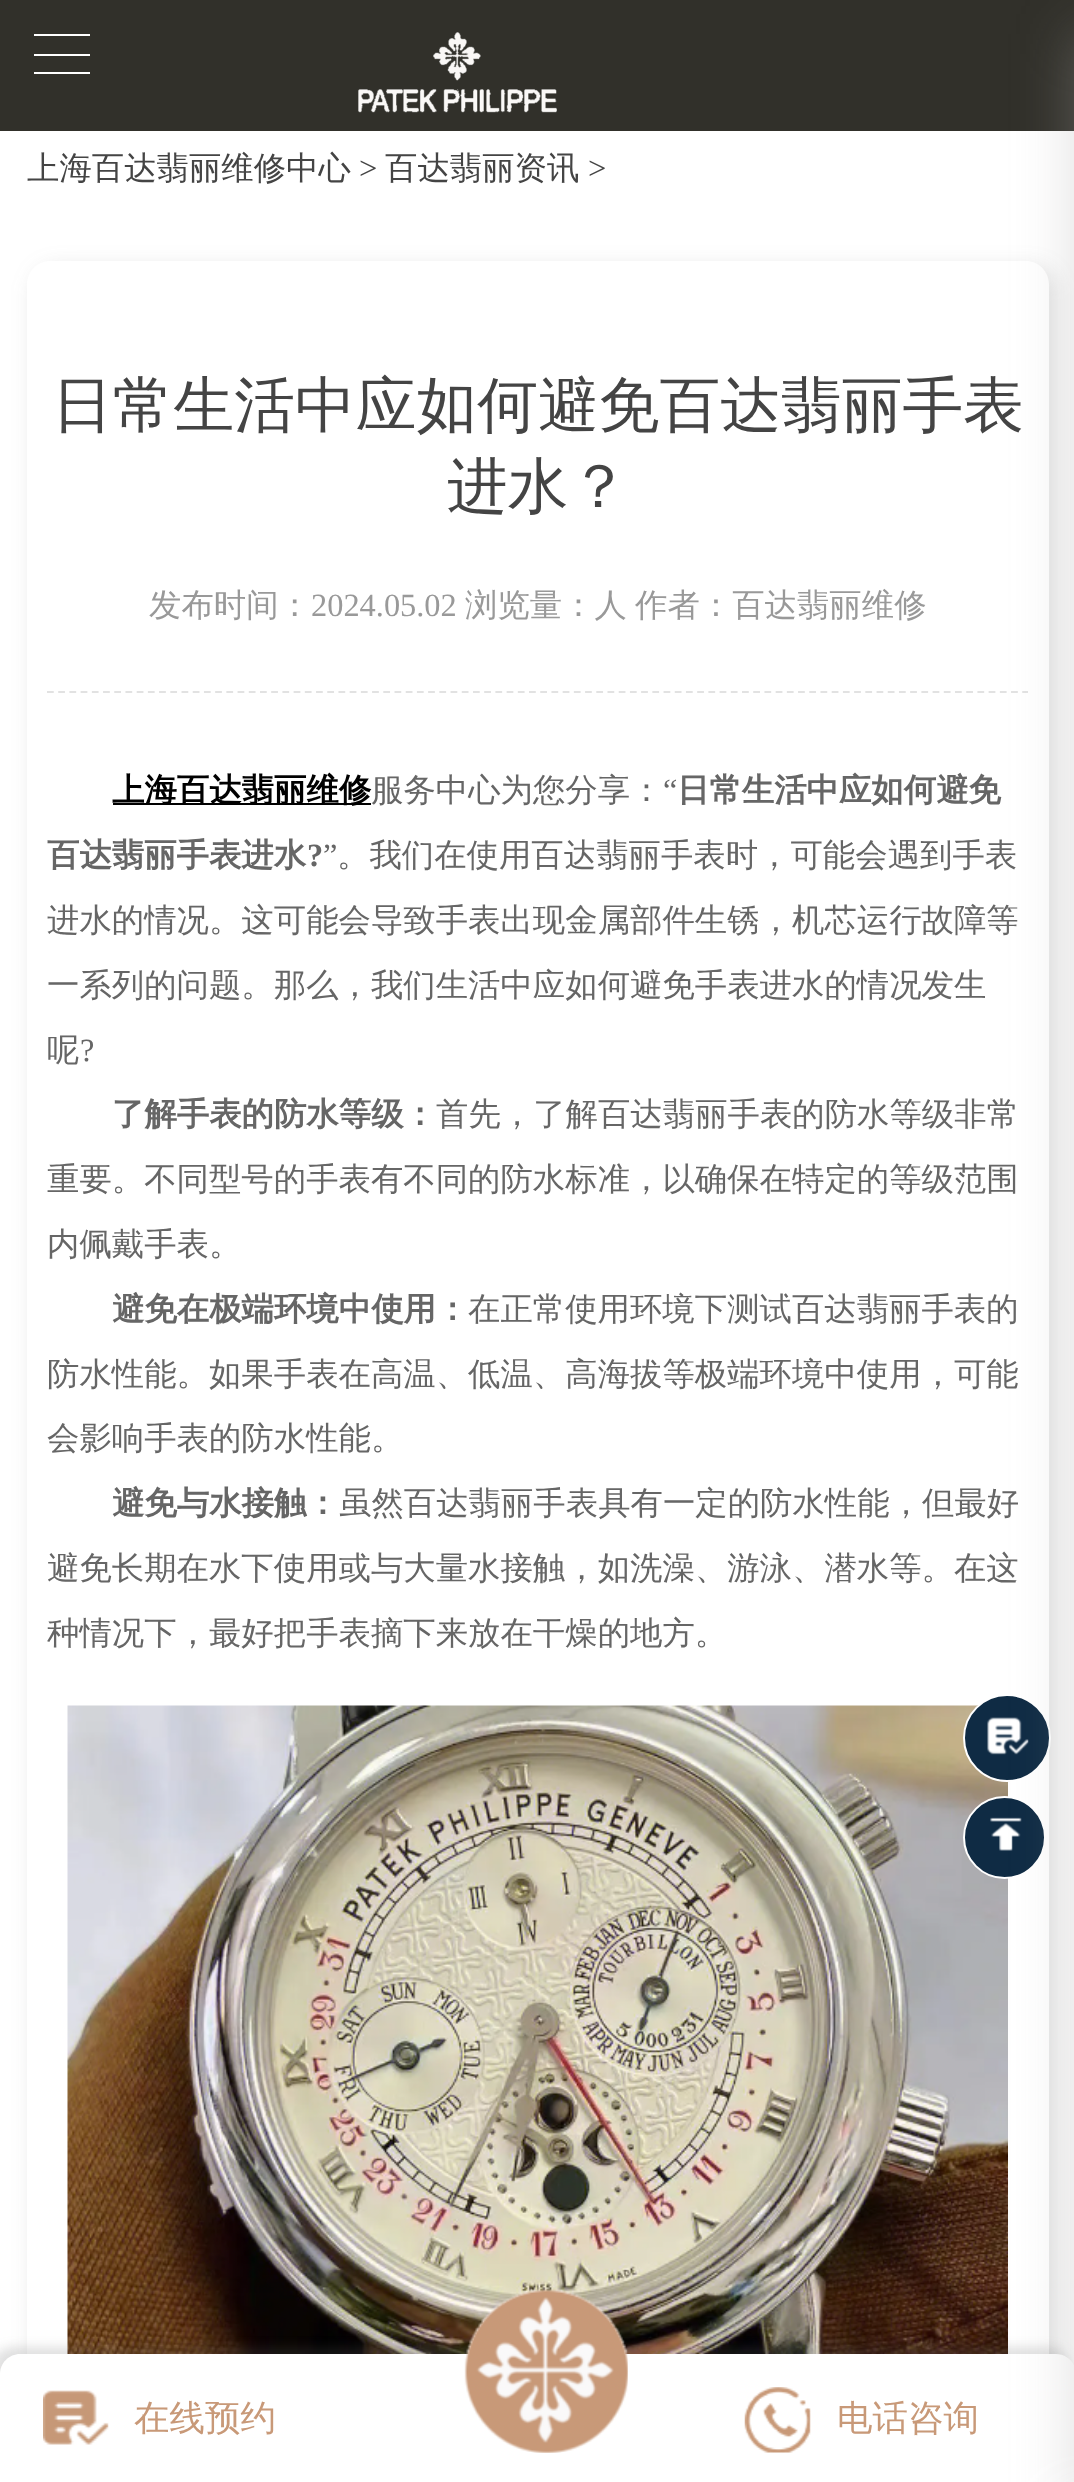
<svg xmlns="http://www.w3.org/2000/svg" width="1074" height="2482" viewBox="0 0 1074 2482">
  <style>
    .t1 { font: 500 32.4px WenQuanYi Zen Hei; fill: #444; }
    .t2 { font: 32.4px Liberation Serif; fill: #444; }
    .t3 { font: 500 60.75px WenQuanYi Zen Hei; fill: #444; }
    .t4 { font: 500 32.4px WenQuanYi Zen Hei; fill: #999; }
    .t5 { font: 32.4px Liberation Serif; fill: #999; }
    .t6 { font: bold 32.4px WenQuanYi Zen Hei; fill: #000; }
    .t7 { font: 500 32.4px WenQuanYi Zen Hei; fill: #666; }
    .t8 { font: 32.4px Liberation Serif; fill: #666; }
    .t9 { font: bold 32.4px WenQuanYi Zen Hei; fill: #666; }
    .t10 { font: bold 32.4px Liberation Serif; fill: #666; }
    .t11 { font: 500 35.5px WenQuanYi Zen Hei; fill: #c89978; }
  </style>
  <defs>
    <clipPath id="clip1"><path d="M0 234H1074V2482H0ZM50 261H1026C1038.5 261 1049 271.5 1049 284V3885C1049 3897.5 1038.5 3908 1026 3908H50C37.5 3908 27 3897.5 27 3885V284C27 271.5 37.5 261 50 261Z" clip-rule="evenodd"/></clipPath>
  </defs>
  <rect width="100%" height="100%" fill="#fff"/>
  <rect x="0" y="0" width="1074" height="131" fill="#31302a"/>
  <rect x="34" y="54" width="56" height="2" fill="#fff"/>
  <rect x="34" y="34" width="56" height="2" fill="#fff"/>
  <rect x="34" y="72" width="56" height="2" fill="#fff"/>
  <image x="358" y="32" width="199" height="81" href="images/1.png"/>
  <g clip-path="url(#clip1)">
    <rect x="34" y="268" width="1021" height="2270" rx="23" fill="#66666633" filter="blur(11px)"/>
  </g>
  <path d="M47 692H1028" fill="none" stroke="#e2e2e2" stroke-width="2.2" stroke-dasharray="6.75 4.46"/>
  <image x="67" y="1705" width="941" height="649" href="images/2.png"/>
  <circle cx="1007" cy="1738" r="43" fill="#0f2b44" stroke="#fff" stroke-width="2"/>
  <image x="987" y="1717" width="42" height="38" href="images/3.png"/>
  <circle cx="1004.5" cy="1837.5" r="40.5" fill="#0f2b44" stroke="#fff" stroke-width="2"/>
  <image x="990" y="1817" width="32" height="34" href="images/4.png"/>
  <rect x="-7" y="2347" width="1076" height="130" rx="20" fill="#66666633" filter="blur(5.5px)"/>
  <path d="M20 2354H1056C1067 2354 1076 2363 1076 2374V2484H0V2374C0 2363 9 2354 20 2354Z" fill="#fff"/>
  <rect x="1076" y="34" width="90" height="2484" fill="#a7a5a561" filter="blur(30.5px)"/>
  <text x="27" y="179" class="t1">上海百达翡丽维修中心</text>
  <text x="359" y="179" class="t2">&gt;</text>
  <text x="385" y="179" class="t1">百达翡丽资讯</text>
  <text x="588" y="179" class="t2">&gt;</text>
  <text x="52" y="426" class="t3">日常生活中应如何避免百达翡丽手表</text>
  <text x="447" y="507" class="t3">进水？</text>
  <text x="149" y="616" class="t4">发布时间：</text>
  <text x="311" y="616" class="t5">2024.05.02</text>
  <text x="465" y="616" class="t4">浏览量：人</text>
  <text x="635" y="616" class="t4">作者：百达翡丽维修</text>
  <rect x="113" y="803" width="258" height="2" fill="#000"/>
  <text x="112" y="801" class="t6">上海百达翡丽维修</text>
  <text x="371" y="801" class="t7">服务中心为您分享：</text>
  <text x="663" y="801" class="t8">“</text>
  <text x="677" y="801" class="t9">日常生活中应如何避免</text>
  <text x="47" y="866" class="t9">百达翡丽手表进水</text>
  <text x="307" y="866" class="t10">?</text>
  <text x="323" y="866" class="t8">”</text>
  <text x="337" y="866" class="t7">。我们在使用百达翡丽手表时，可能会遇到手表</text>
  <text x="47" y="931" class="t7">进水的情况。这可能会导致手表出现金属部件生锈，机芯运行故障等</text>
  <text x="47" y="996" class="t7">一系列的问题。那么，我们生活中应如何避免手表进水的情况发生</text>
  <text x="47" y="1061" class="t7">呢</text>
  <text x="80" y="1061" class="t8">?</text>
  <text x="112" y="1125" class="t9">了解手表的防水等级：</text>
  <text x="436" y="1125" class="t7">首先，了解百达翡丽手表的防水等级非常</text>
  <text x="47" y="1190" class="t7">重要。不同型号的手表有不同的防水标准，以确保在特定的等级范围</text>
  <text x="47" y="1255" class="t7">内佩戴手表。</text>
  <text x="112" y="1320" class="t9">避免在极端环境中使用：</text>
  <text x="468" y="1320" class="t7">在正常使用环境下测试百达翡丽手表的</text>
  <text x="47" y="1385" class="t7">防水性能。如果手表在高温、低温、高海拔等极端环境中使用，可能</text>
  <text x="47" y="1449" class="t7">会影响手表的防水性能。</text>
  <text x="112" y="1514" class="t9">避免与水接触：</text>
  <text x="339" y="1514" class="t7">虽然百达翡丽手表具有一定的防水性能，但最好</text>
  <text x="47" y="1579" class="t7">避免长期在水下使用或与大量水接触，如洗澡、游泳、潜水等。在这</text>
  <text x="47" y="1644" class="t7">种情况下，最好把手表摘下来放在干燥的地方。</text>
  <image x="43" y="2390" width="66" height="55" href="images/5.png"/>
  <text x="134" y="2430" class="t11">在线预约</text>
  <image x="464" y="2289" width="164" height="164" href="images/6.png"/>
  <image x="744" y="2387" width="67" height="66" href="images/7.png"/>
  <text x="837" y="2430" class="t11">电话咨询</text>
</svg>
